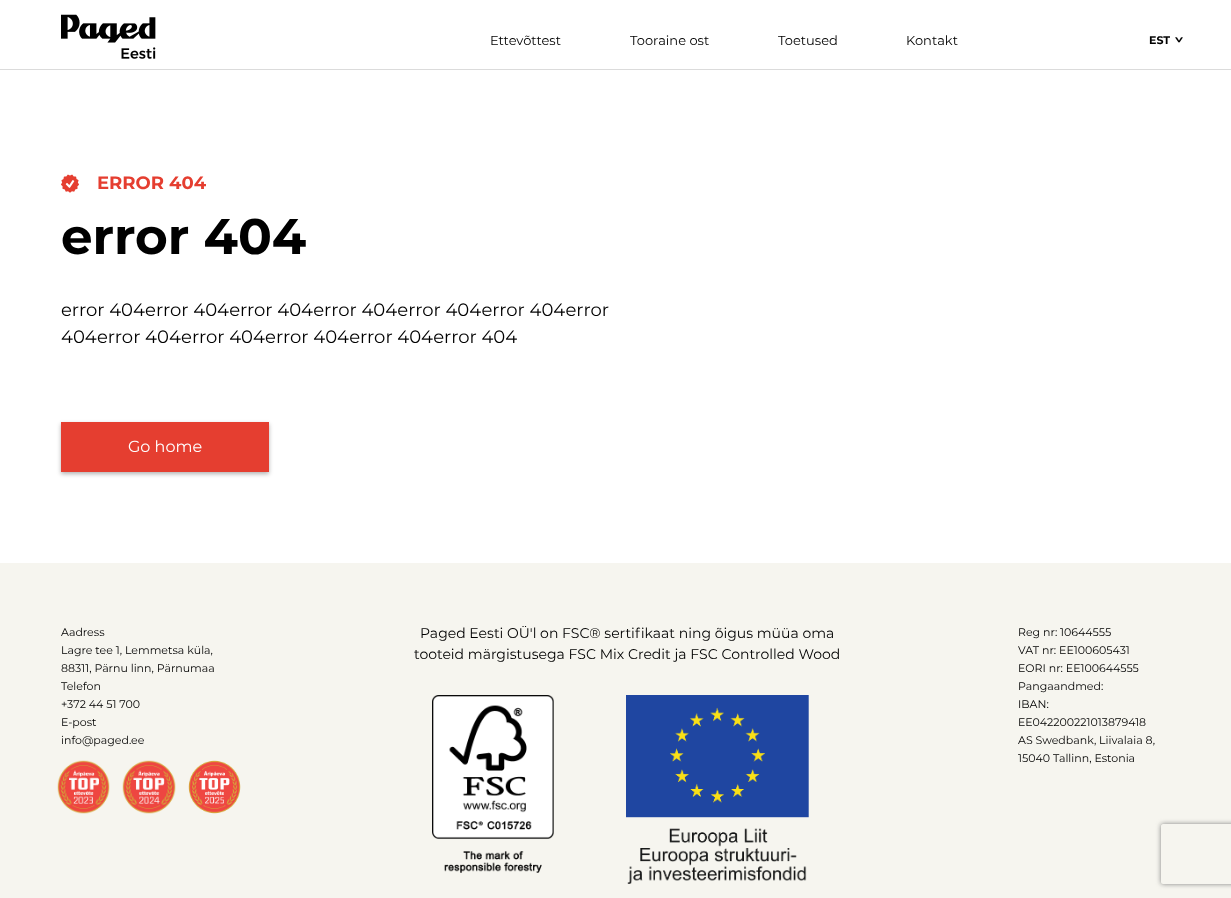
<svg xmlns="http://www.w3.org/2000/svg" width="1231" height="898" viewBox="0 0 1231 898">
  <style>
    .t1 { font: 13px Montserrat; fill: #000; }
    .t2 { font: bold 11px Montserrat; fill: #000; }
    .t3 { font: bold 18px Montserrat; fill: #e53e30; }
    .t4 { font: bold 50px Montserrat; fill: #000; }
    .t5 { font: 18px Montserrat; fill: #000; }
    .t6 { font: 16px Montserrat; fill: #fff; }
    .t7 { font: 11px Montserrat; fill: #000; }
    .t8 { font: 14px Montserrat; fill: #000; }
  </style>
  <defs>
    <clipPath id="clip1"><rect x="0" y="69" width="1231" height="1"/></clipPath>
    <clipPath id="clip2"><path d="M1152 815H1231V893H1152ZM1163 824H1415C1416 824 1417 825 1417 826V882C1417 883 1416 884 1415 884H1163C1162 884 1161 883 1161 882V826C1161 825 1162 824 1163 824Z" clip-rule="evenodd"/></clipPath>
  </defs>
  <rect width="100%" height="100%" fill="#fff"/>
  <g clip-path="url(#clip1)">
    <rect x="0" y="1" width="1231" height="69" fill="#00000024" filter="blur(0.5px)"/>
  </g>
  <image x="61" y="14" width="95" height="45" href="images/1.png"/>
  <text x="490" y="45" class="t1">Ettevõttest</text>
  <text x="630" y="45" class="t1">Tooraine ost</text>
  <text x="778" y="45" class="t1">Toetused</text>
  <text x="906" y="45" class="t1">Kontakt</text>
  <text x="1149" y="44" class="t2">EST</text>
  <image x="1175" y="37" width="8" height="6" href="images/2.png"/>
  <image x="61" y="174" width="18" height="19" href="images/3.png"/>
  <text x="97" y="189" class="t3">ERROR 404</text>
  <text x="61" y="254" class="t4">error 404</text>
  <text x="61" y="316" class="t5">error 404error 404error 404error 404error 404error 404error</text>
  <text x="61" y="343" class="t5">404error 404error 404error 404error 404error 404</text>
  <rect x="61" y="424" width="208" height="50" fill="#0000004d" filter="blur(2px)"/>
  <rect x="61" y="422" width="208" height="50" fill="#e53e30"/>
  <text x="128" y="452" class="t6">Go home</text>
  <rect x="0" y="563" width="1231" height="335" fill="#f6f5ef"/>
  <text x="61" y="636" class="t7">Aadress</text>
  <text x="61" y="654" class="t7">Lagre tee 1, Lemmetsa küla,</text>
  <text x="61" y="672" class="t7">88311, Pärnu linn, Pärnumaa</text>
  <text x="61" y="690" class="t7">Telefon</text>
  <text x="61" y="708" class="t7">+372 44 51 700</text>
  <text x="61" y="726" class="t7">E-post</text>
  <text x="61" y="744" class="t7">info@paged.ee</text>
  <image x="57" y="760" width="53" height="54" href="images/4.png"/>
  <image x="122" y="760" width="54" height="54" href="images/5.png"/>
  <image x="188" y="760" width="53" height="54" href="images/6.png"/>
  <text x="420" y="638" class="t8">Paged Eesti OÜ'l on FSC® sertifikaat ning õigus müüa oma</text>
  <text x="414" y="659" class="t8">tooteid märgistusega FSC Mix Credit ja FSC Controlled Wood</text>
  <image x="432" y="695" width="122" height="178" href="images/7.png"/>
  <image x="626" y="695" width="183" height="189" href="images/8.png"/>
  <text x="1018" y="636" class="t7">Reg nr: 10644555</text>
  <text x="1018" y="654" class="t7">VAT nr: EE100605431</text>
  <text x="1018" y="672" class="t7">EORI nr: EE100644555</text>
  <text x="1018" y="690" class="t7">Pangaandmed:</text>
  <text x="1018" y="708" class="t7">IBAN:</text>
  <text x="1018" y="726" class="t7">EE042200221013879418</text>
  <text x="1018" y="744" class="t7">AS Swedbank, Liivalaia 8,</text>
  <text x="1018" y="762" class="t7">15040 Tallinn, Estonia</text>
  <g clip-path="url(#clip2)">
    <rect x="1161" y="824" width="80" height="60" rx="2" fill="#808080" filter="blur(2.5px)"/>
  </g>
</svg>
